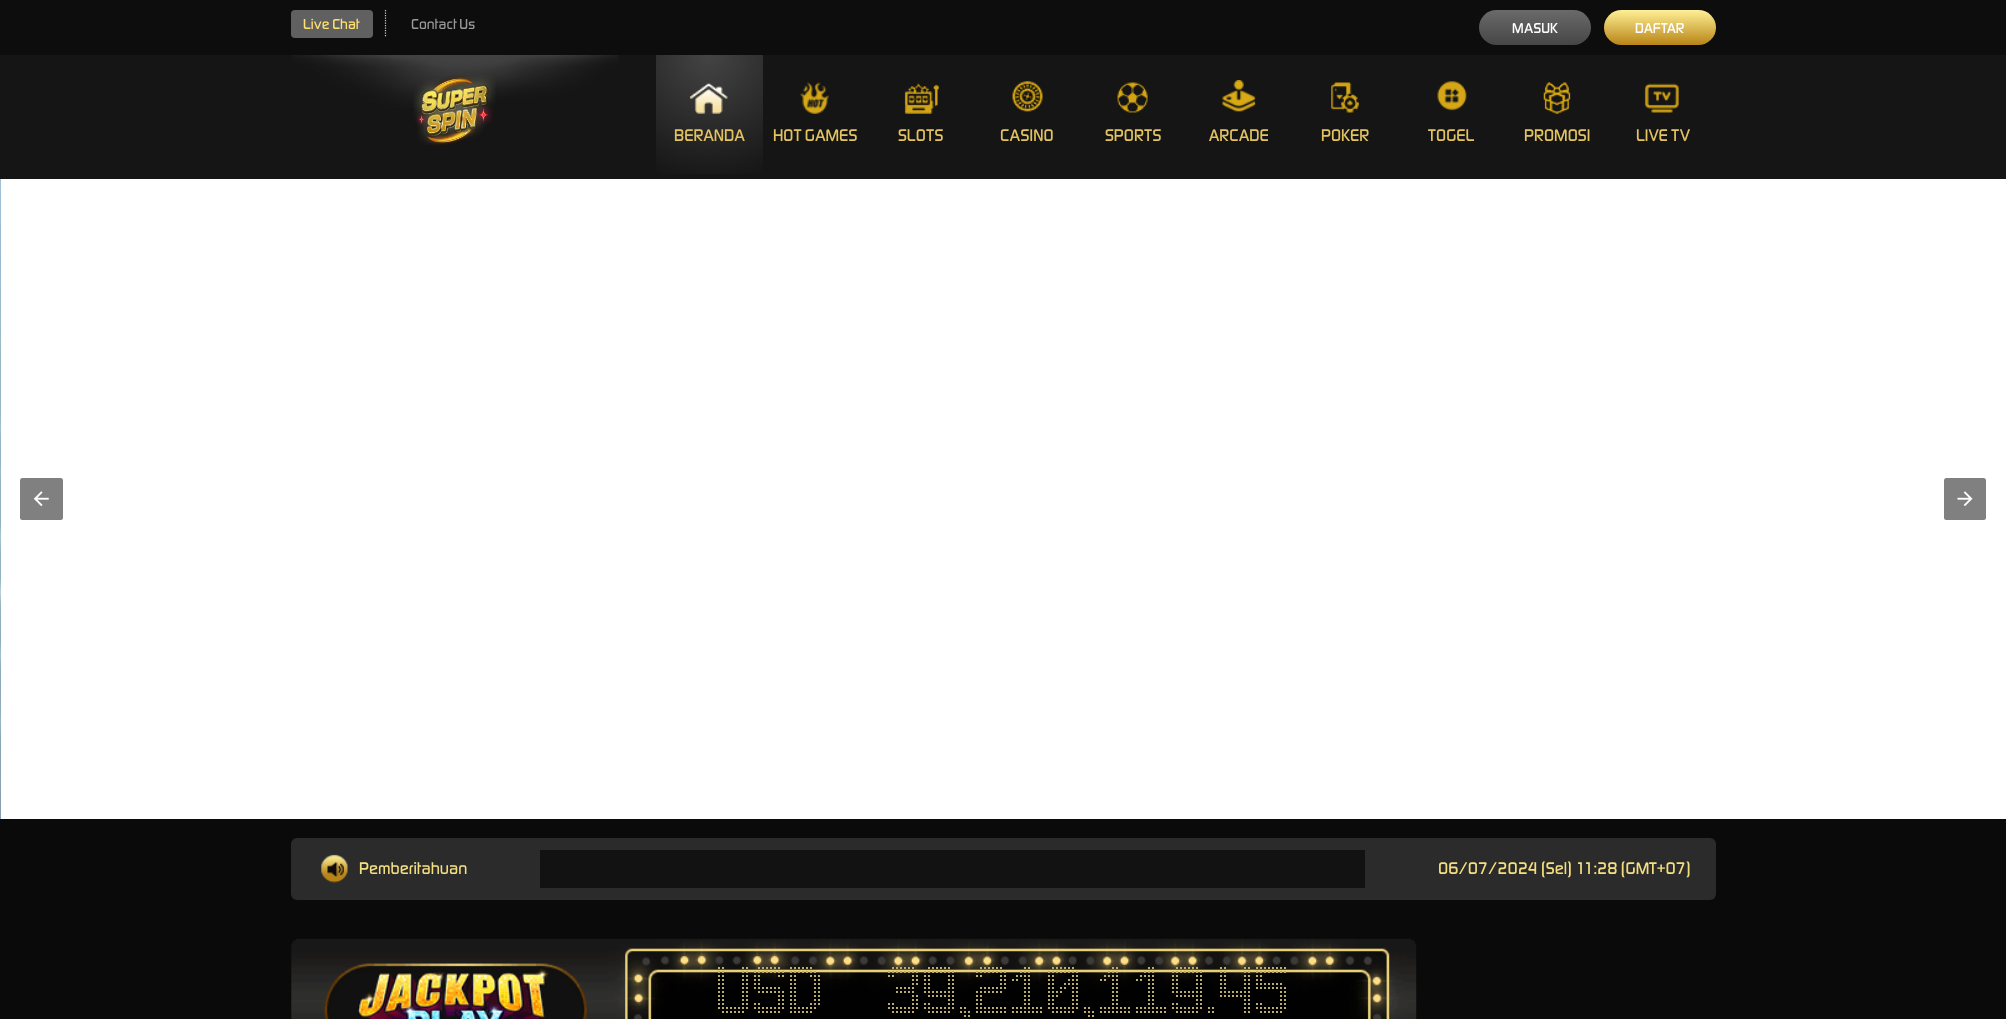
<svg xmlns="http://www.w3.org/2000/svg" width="2006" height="1019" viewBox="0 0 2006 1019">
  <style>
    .t1 { font: 500 15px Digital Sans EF; fill: #fee16e; }
    .t2 { font: 500 15px Digital Sans EF; fill: #999; }
    .t3 { font: 500 15px Digital Sans EF; fill: #fff; }
    .t4 { font: 500 17.5px Digital Sans EF; fill: #e2c360; }
    .t5 { font: 500 17.5px Digital Sans EF; fill: #f4df80; }
    .t6 { font: 40px 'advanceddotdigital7'; fill: #baad6b; }
  </style>
  <defs>
    <linearGradient id="g1" gradientUnits="userSpaceOnUse" x1="1535" y1="10" x2="1535" y2="45"><stop offset="0" stop-color="#6a6a6a"/><stop offset="1" stop-color="#464646"/></linearGradient>
    <linearGradient id="g2" gradientUnits="userSpaceOnUse" x1="1660" y1="10" x2="1660" y2="45"><stop offset="0" stop-color="#fff095"/><stop offset="1" stop-color="#b88416"/></linearGradient>
    <radialGradient id="g3" gradientUnits="userSpaceOnUse" cx="709" cy="55" r="130"><stop offset="0" stop-color="#444"/><stop offset="1" stop-color="#151515"/></radialGradient>
  </defs>
  <rect width="100%" height="100%" fill="#fff"/>
  <rect x="0" y="0" width="2006" height="55" fill="#0d0d0d"/>
  <rect x="291" y="10" width="82" height="28" rx="4" fill="#606060"/>
  <text x="303" y="29" class="t1">Live Chat</text>
  <path d="M385.5 10V37.5" fill="none" stroke="#ccc" stroke-width="1.2" stroke-dasharray="1.25 1.25"/>
  <text x="411" y="29" class="t2">Contact Us</text>
  <rect x="1479" y="10" width="112" height="35" rx="17.5" fill="url(#g1)"/>
  <text x="1512" y="33" class="t3">MASUK</text>
  <rect x="1604" y="10" width="112" height="35" rx="17.5" fill="url(#g2)"/>
  <text x="1635" y="33" class="t3">DAFTAR</text>
  <rect x="0" y="55" width="2006" height="124" fill="#151515"/>
  <image x="291" y="55" width="328" height="53" href="images/1.png"/>
  <image x="413" y="75" width="83" height="70" href="images/2.png"/>
  <rect x="656" y="55" width="107" height="119" fill="url(#g3)"/>
  <image x="690" y="83" width="38" height="31" href="images/3.png"/>
  <text x="674" y="141" class="t4">BERANDA</text>
  <image x="800" y="82" width="29" height="32" href="images/4.png"/>
  <text x="773" y="141" class="t4">HOT GAMES</text>
  <image x="904" y="83" width="35" height="31" href="images/5.png"/>
  <text x="898" y="141" class="t4">SLOTS</text>
  <image x="1012" y="81" width="31" height="31" href="images/6.png"/>
  <text x="1000" y="141" class="t4">CASINO</text>
  <image x="1117" y="82" width="31" height="31" href="images/7.png"/>
  <text x="1105" y="141" class="t4">SPORTS</text>
  <image x="1222" y="80" width="34" height="32" href="images/8.png"/>
  <text x="1209" y="141" class="t4">ARCADE</text>
  <image x="1331" y="82" width="28" height="31" href="images/9.png"/>
  <text x="1321" y="141" class="t4">POKER</text>
  <image x="1437" y="81" width="30" height="30" href="images/10.png"/>
  <text x="1428" y="141" class="t4">TOGEL</text>
  <image x="1543" y="82" width="28" height="32" href="images/11.png"/>
  <text x="1524" y="141" class="t4">PROMOSI</text>
  <image x="1644" y="83" width="35" height="30" href="images/12.png"/>
  <text x="1636" y="141" class="t4">LIVE TV</text>
  <image x="0" y="179" width="1" height="640" href="images/13.png"/>
  <rect x="20" y="478" width="43" height="42" rx="2.5" fill="#808080"/>
  <image x="33" y="491" width="16" height="16" href="images/14.png"/>
  <rect x="1944" y="478" width="42" height="42" rx="2.5" fill="#808080"/>
  <image x="1957" y="491" width="16" height="15" href="images/15.png"/>
  <rect x="0" y="819" width="2006" height="200" fill="#0a0a0a"/>
  <rect x="291" y="838" width="1425" height="62" rx="6" fill="#2b2b2b"/>
  <image x="321" y="854" width="27" height="29" href="images/16.png"/>
  <text x="359" y="874" class="t5">Pemberitahuan</text>
  <rect x="540" y="850" width="825" height="38" fill="#131212"/>
  <text x="1438" y="874" class="t5">06/07/2024 (Sel) 11:28 (GMT+07)</text>
  <image x="291" y="938" width="1126" height="81" href="images/17.png"/>
  <text x="718" y="1013" class="t6">USD</text>
  <text x="888" y="1013" class="t6">39,210,119.45</text>
</svg>
